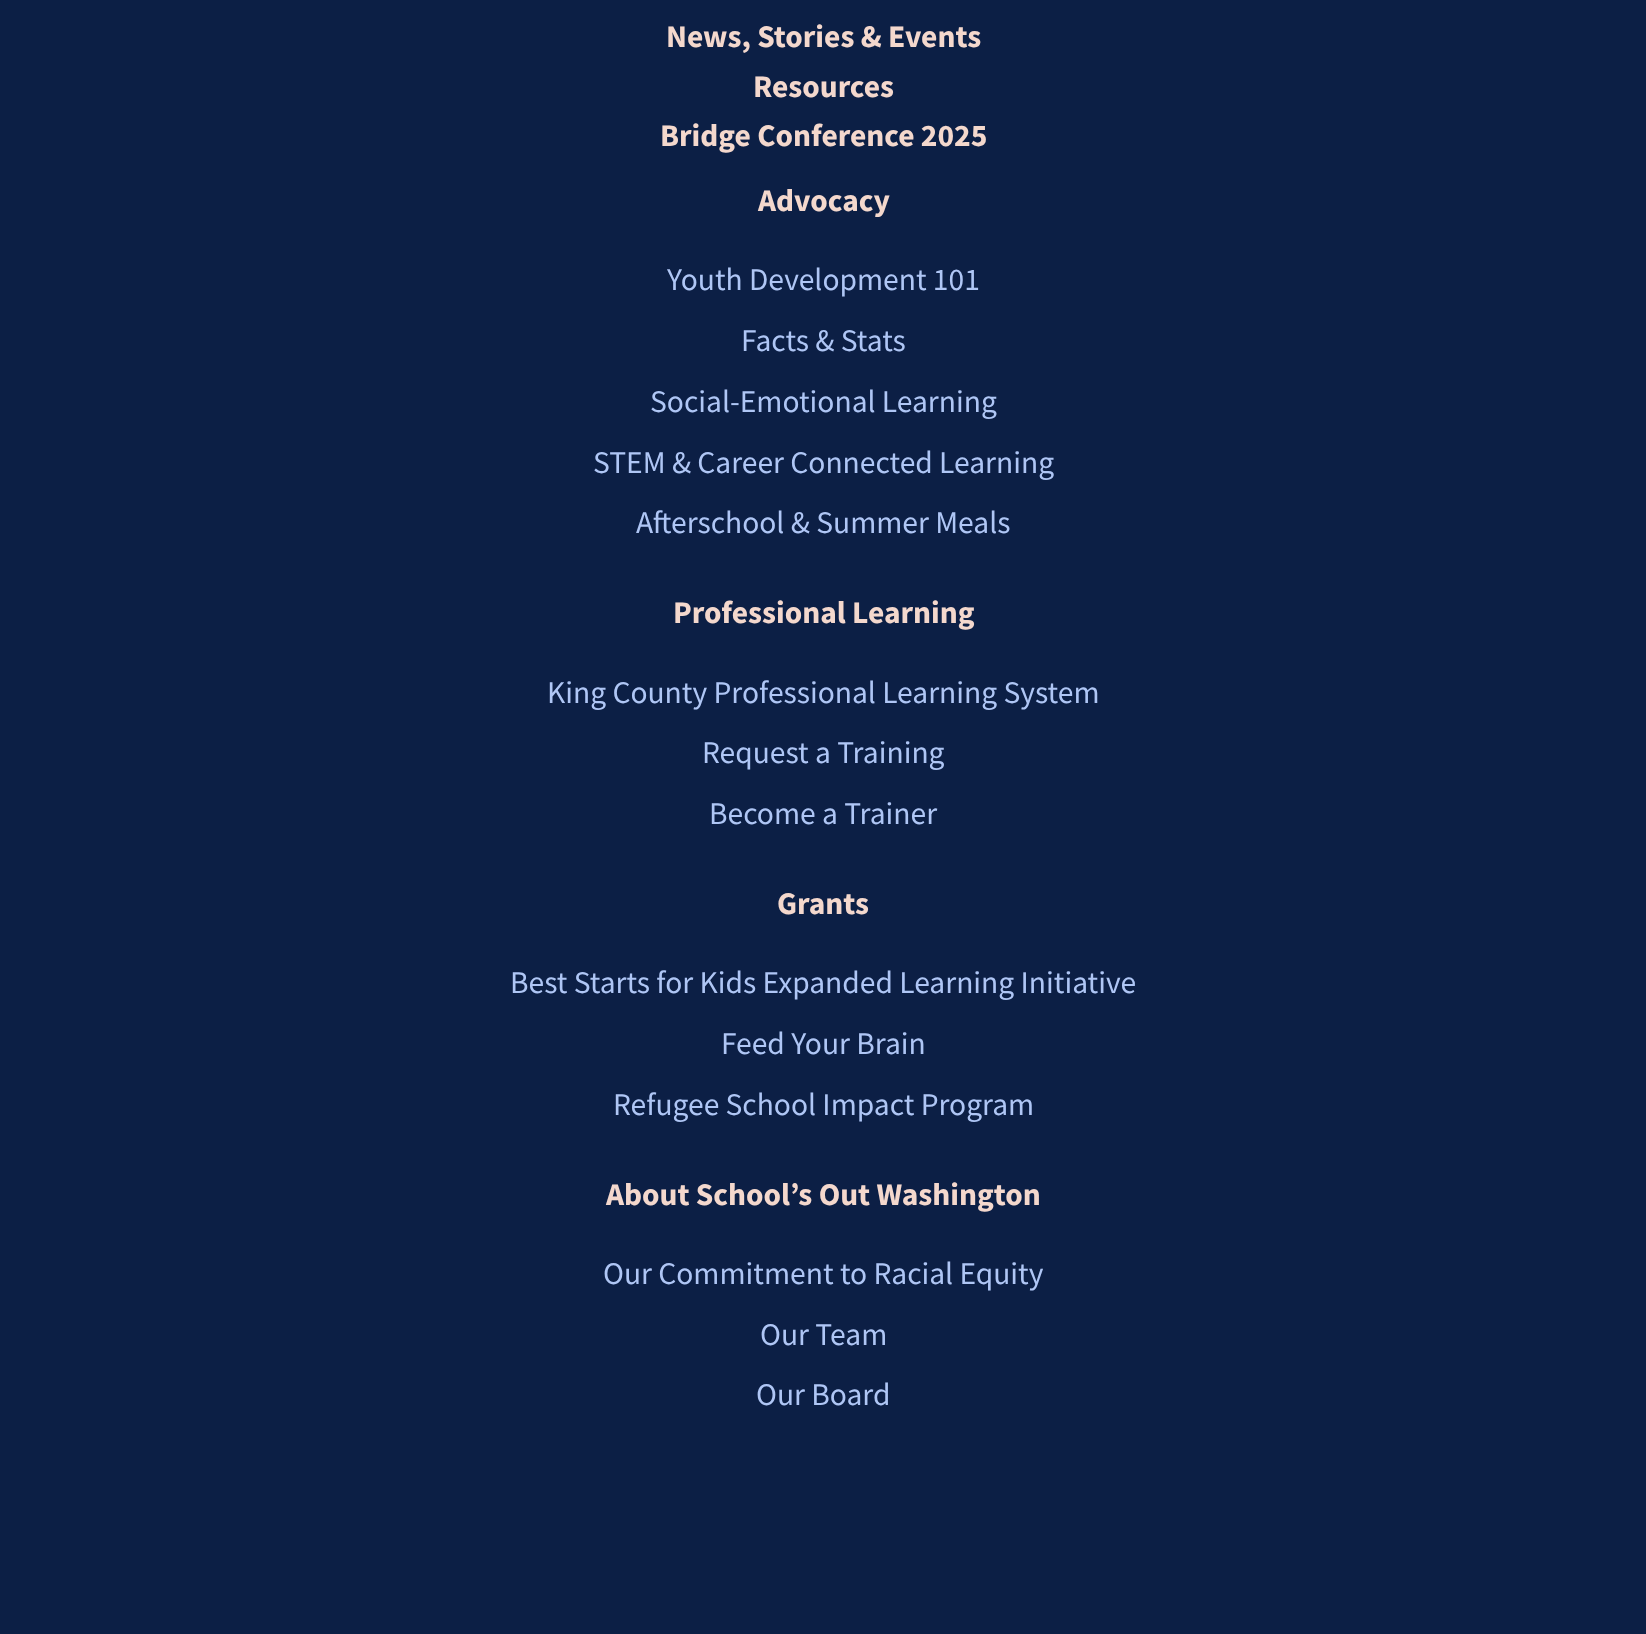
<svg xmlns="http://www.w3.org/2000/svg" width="1646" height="1634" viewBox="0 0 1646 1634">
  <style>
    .t1 { font: bold 31.5px Source Sans Pro; fill: #f4d8cd; }
    .t2 { font: 31.5px Source Sans Pro; fill: #afc6f5; }
  </style>
  <rect width="100%" height="100%" fill="#0c1f45"/>
  <text x="666" y="47" class="t1">News, Stories &amp; Events</text>
  <text x="753" y="97" class="t1">Resources</text>
  <text x="660" y="146" class="t1">Bridge Conference 2025</text>
  <text x="758" y="211" class="t1">Advocacy</text>
  <text x="667" y="290" class="t2">Youth Development 101</text>
  <text x="741" y="351" class="t2">Facts &amp; Stats</text>
  <text x="650" y="412" class="t2">Social-Emotional Learning</text>
  <text x="593" y="473" class="t2">STEM &amp; Career Connected Learning</text>
  <text x="636" y="533" class="t2">Afterschool &amp; Summer Meals</text>
  <text x="673" y="623" class="t1">Professional Learning</text>
  <text x="547" y="703" class="t2">King County Professional Learning System</text>
  <text x="702" y="763" class="t2">Request a Training</text>
  <text x="709" y="824" class="t2">Become a Trainer</text>
  <text x="777" y="914" class="t1">Grants</text>
  <text x="510" y="993" class="t2">Best Starts for Kids Expanded Learning Initiative</text>
  <text x="721" y="1054" class="t2">Feed Your Brain</text>
  <text x="613" y="1115" class="t2">Refugee School Impact Program</text>
  <text x="606" y="1205" class="t1">About School’s Out Washington</text>
  <text x="603" y="1284" class="t2">Our Commitment to Racial Equity</text>
  <text x="760" y="1345" class="t2">Our Team</text>
  <text x="756" y="1405" class="t2">Our Board</text>
</svg>
